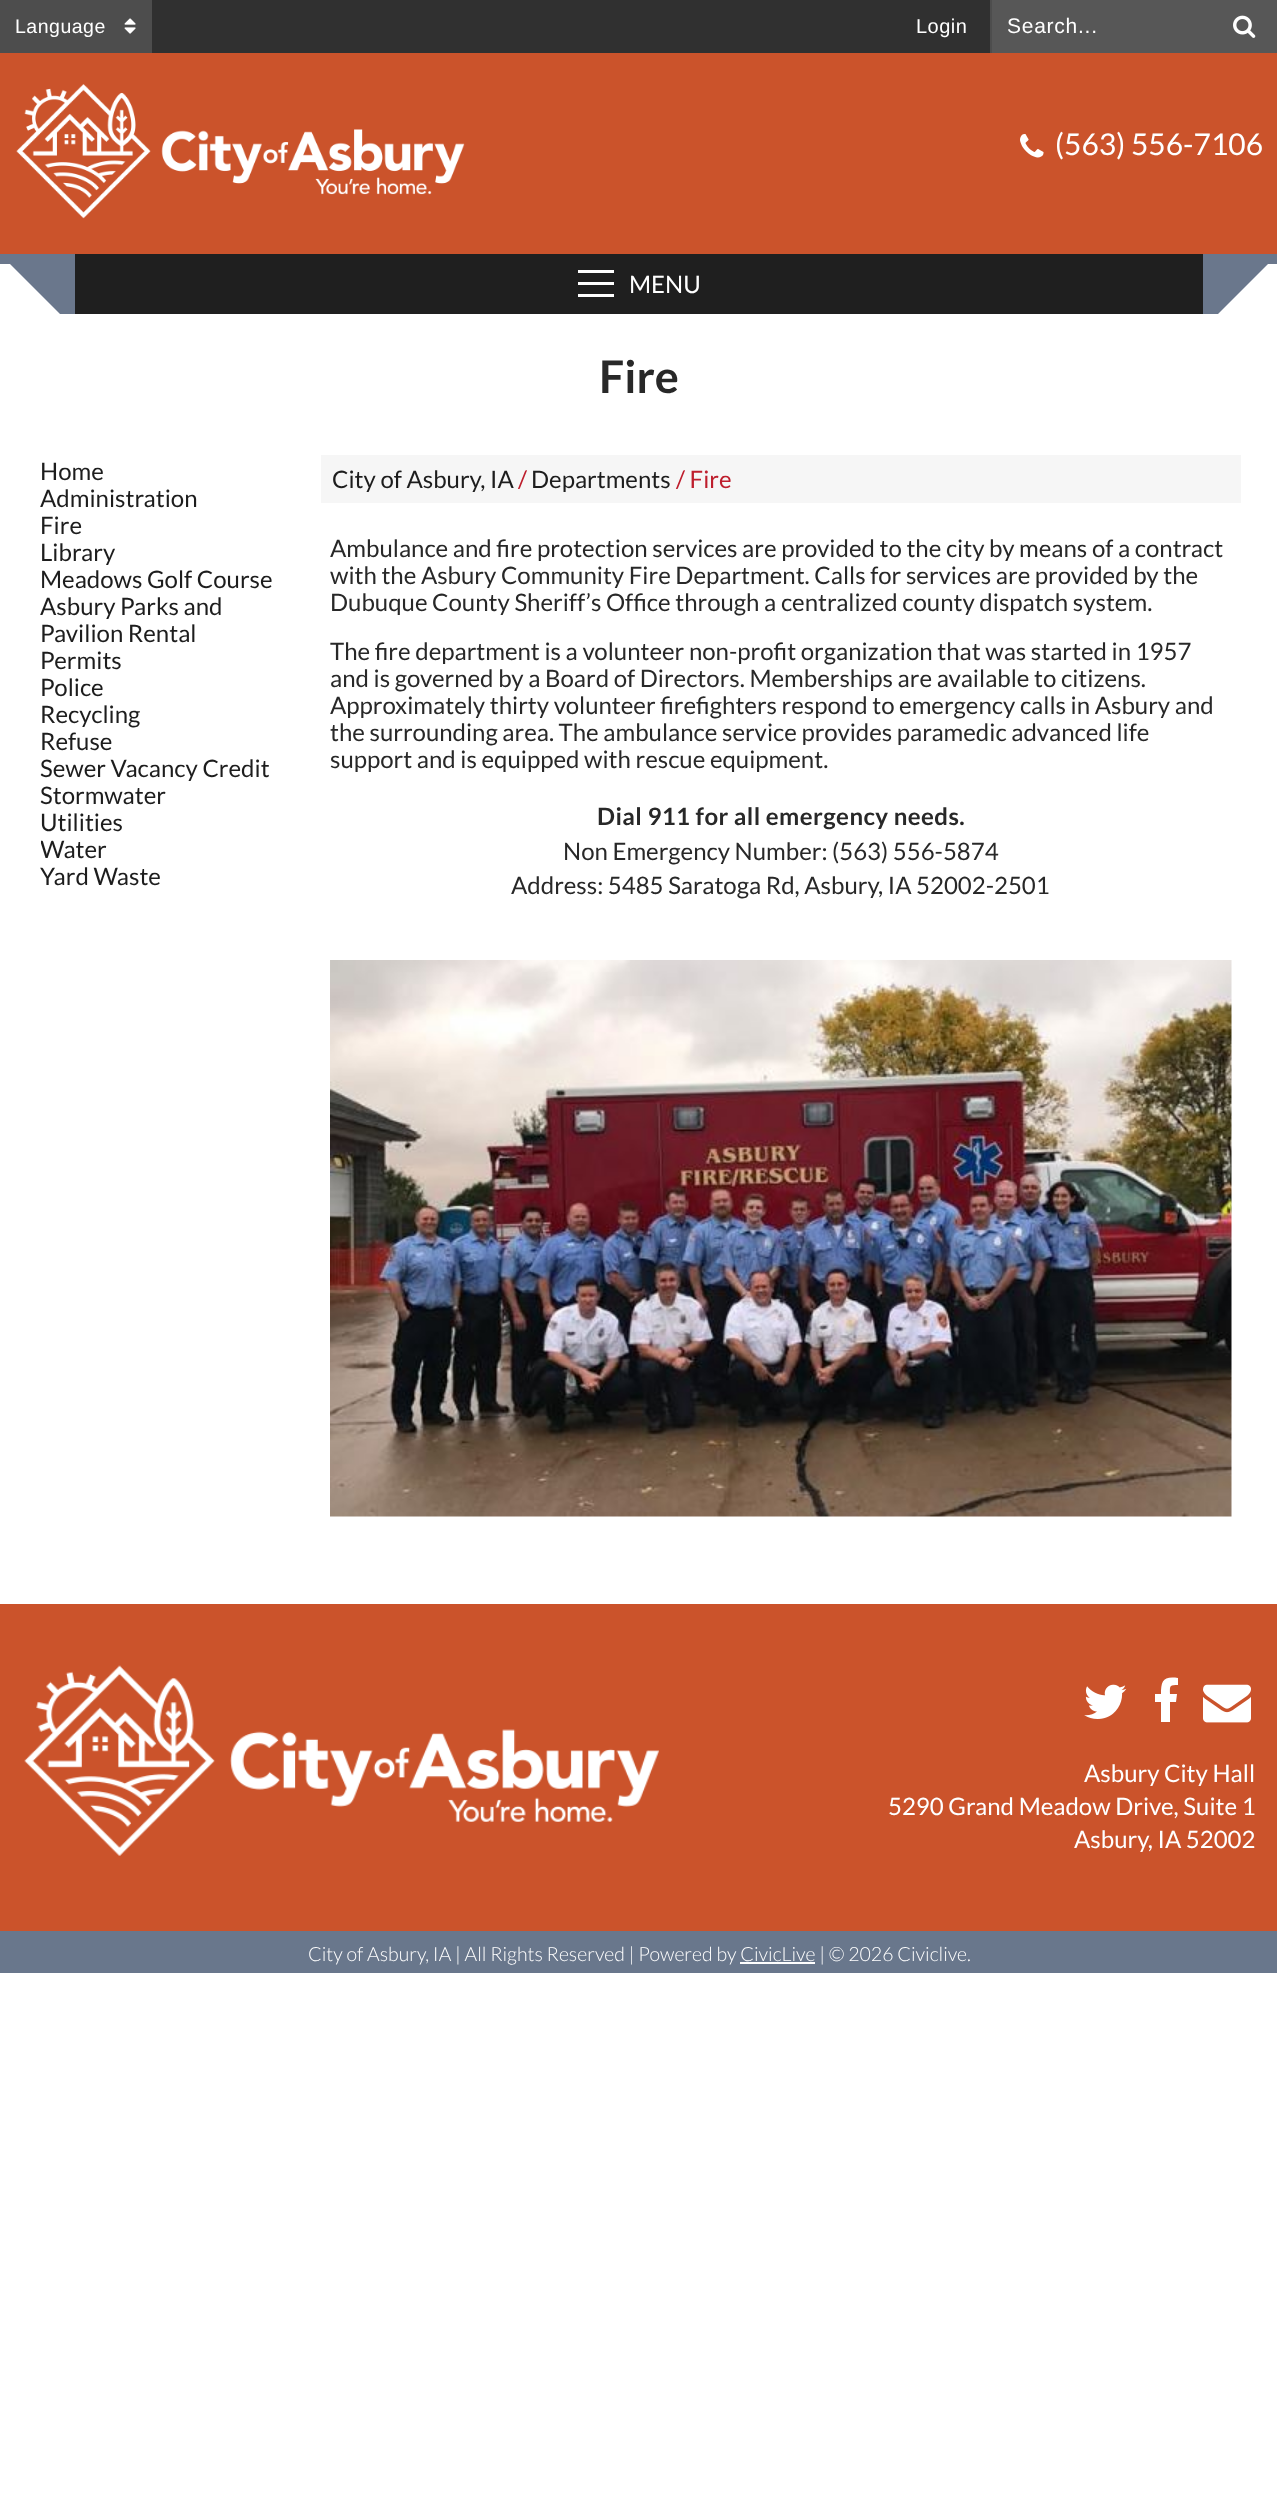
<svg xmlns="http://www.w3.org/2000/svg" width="1277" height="2496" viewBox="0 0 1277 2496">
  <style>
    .t1 { font: 19.5px Liberation Sans; letter-spacing: 0.5px; fill: #fff; }
    .t2 { font: 20px Liberation Sans; letter-spacing: 0.5px; fill: #fff; }
    .t3 { font: 21px Liberation Sans; letter-spacing: 0.75px; fill: #fff; }
    .t4 { font: 30px Lato; fill: #fff; }
    .t5 { font: 24px Lato; fill: #fff; }
    .t6 { font: bold 45px Lato; fill: #282828; }
    .t7 { font: 24px Lato; fill: #1d1d1d; }
    .t8 { font: 24px Lato; fill: #be1e2d; }
    .t9 { font: 24px Lato; fill: #282828; }
    .t10 { font: bold 24px Lato; letter-spacing: 0.45px; fill: #282828; }
    .t11 { font: 300 19.5px Lato; fill: #fff; }
  </style>
  <defs>
    <clipPath id="clip1"><rect x="41" y="458" width="247" height="459"/></clipPath>
  </defs>
  <rect width="100%" height="100%" fill="#fff"/>
  <rect x="152" y="0" width="838" height="53" fill="#303030"/>
  <rect x="0" y="0" width="152" height="53" fill="#4d4d4d"/>
  <text x="15" y="33" class="t1">Language</text>
  <image x="124" y="18" width="12" height="16" href="images/1.png"/>
  <rect x="990" y="0" width="2" height="53" fill="#4d4d4d"/>
  <text x="916" y="33" class="t2">Login</text>
  <rect x="992" y="0" width="285" height="53" fill="#575757"/>
  <text x="1007" y="33" class="t3">Search...</text>
  <image x="1233" y="15" width="23" height="23" href="images/2.png"/>
  <rect x="0" y="53" width="1277" height="201" fill="#cb532b"/>
  <rect x="0" y="254" width="1277" height="10" fill="#6a778c"/>
  <image x="16" y="84" width="449" height="135" href="images/3.png"/>
  <image x="1020" y="134" width="24" height="24" href="images/4.png"/>
  <text x="1055" y="155" class="t4">(563) 556-7106</text>
  <rect x="60" y="264" width="1158" height="50" fill="#6a778c"/>
  <path d="M60 254V314L0 254Z" fill="#6a778c"/>
  <rect x="75" y="254" width="1128" height="60" fill="#1f1f1f"/>
  <rect x="578" y="282" width="36" height="3" fill="#fff"/>
  <rect x="578" y="270" width="36" height="3" fill="#fff"/>
  <rect x="578" y="294" width="36" height="3" fill="#fff"/>
  <text x="629" y="293" class="t5">MENU</text>
  <path d="M1218 254H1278L1218 314Z" fill="#6a778c"/>
  <text x="599" y="393" class="t6">Fire</text>
  <text x="40" y="480" class="t7">Home</text>
  <text x="40" y="507" class="t7">Administration</text>
  <text x="40" y="534" class="t7">Fire</text>
  <text x="40" y="561" class="t7">Library</text>
  <text x="40" y="588" class="t7">Meadows Golf Course</text>
  <text x="40" y="615" class="t7">Asbury Parks and</text>
  <text x="40" y="642" class="t7">Pavilion Rental</text>
  <text x="40" y="669" class="t7">Permits</text>
  <text x="40" y="696" class="t7">Police</text>
  <text x="40" y="723" class="t7">Recycling</text>
  <text x="40" y="750" class="t7">Refuse</text>
  <text x="40" y="777" class="t7">Sewer Vacancy Credit</text>
  <text x="40" y="804" class="t7">Stormwater</text>
  <text x="40" y="831" class="t7">Utilities</text>
  <g clip-path="url(#clip1)">
    <text x="40" y="858" class="t7">Water</text>
  </g>
  <text x="40" y="885" class="t7">Yard Waste</text>
  <rect x="321" y="455" width="920" height="48" fill="#f6f6f6"/>
  <text x="332" y="488" class="t7">City of Asbury, IA</text>
  <text x="518" y="488" class="t8">/</text>
  <text x="531" y="488" class="t7">Departments</text>
  <text x="676" y="488" class="t8">/ Fire</text>
  <text x="330" y="557" class="t9">Ambulance and fire protection services are provided to the city by means of a contract</text>
  <text x="330" y="584" class="t9">with the Asbury Community Fire Department. Calls for services are provided by the</text>
  <text x="330" y="611" class="t9">Dubuque County Sheriff’s Office through a centralized county dispatch system.</text>
  <text x="330" y="660" class="t9">The fire department is a volunteer non-profit organization that was started in 1957</text>
  <text x="330" y="687" class="t9">and is governed by a Board of Directors. Memberships are available to citizens.</text>
  <text x="330" y="714" class="t9">Approximately thirty volunteer firefighters respond to emergency calls in Asbury and</text>
  <text x="330" y="741" class="t9">the surrounding area. The ambulance service provides paramedic advanced life</text>
  <text x="330" y="768" class="t9">support and is equipped with rescue equipment.</text>
  <text x="597" y="825" class="t10">Dial 911 for all emergency needs.</text>
  <text x="563" y="860" class="t9">Non Emergency Number: (563) 556-5874</text>
  <text x="511" y="894" class="t9">Address: 5485 Saratoga Rd, Asbury, IA 52002-2501</text>
  <image x="330" y="960" width="902" height="557" href="images/5.png"/>
  <rect x="0" y="1604" width="1277" height="327" fill="#cb532b"/>
  <image x="24" y="1665" width="635" height="191" href="images/6.png"/>
  <image x="1084" y="1684" width="43" height="35" href="images/7.png"/>
  <path d="M1178 1678V1685C1169 1685 1170 1686 1170 1694H1177L1176 1702H1170V1722H1161V1702H1155V1694H1161C1161 1681 1163 1676 1178 1678Z" fill="#fff"/>
  <image x="1203" y="1684" width="48" height="39" href="images/8.png"/>
  <text x="1084" y="1782" class="t5">Asbury City Hall</text>
  <text x="888" y="1815" class="t5">5290 Grand Meadow Drive, Suite 1</text>
  <text x="1074" y="1848" class="t5">Asbury, IA 52002</text>
  <rect x="0" y="1931" width="1277" height="42" fill="#69778c"/>
  <text x="308" y="1961" class="t11">City of Asbury, IA | All Rights Reserved | Powered by CivicLive | © 2026 Civiclive.</text>
  <rect x="740" y="1962" width="75" height="2" fill="#fff"/>
</svg>
